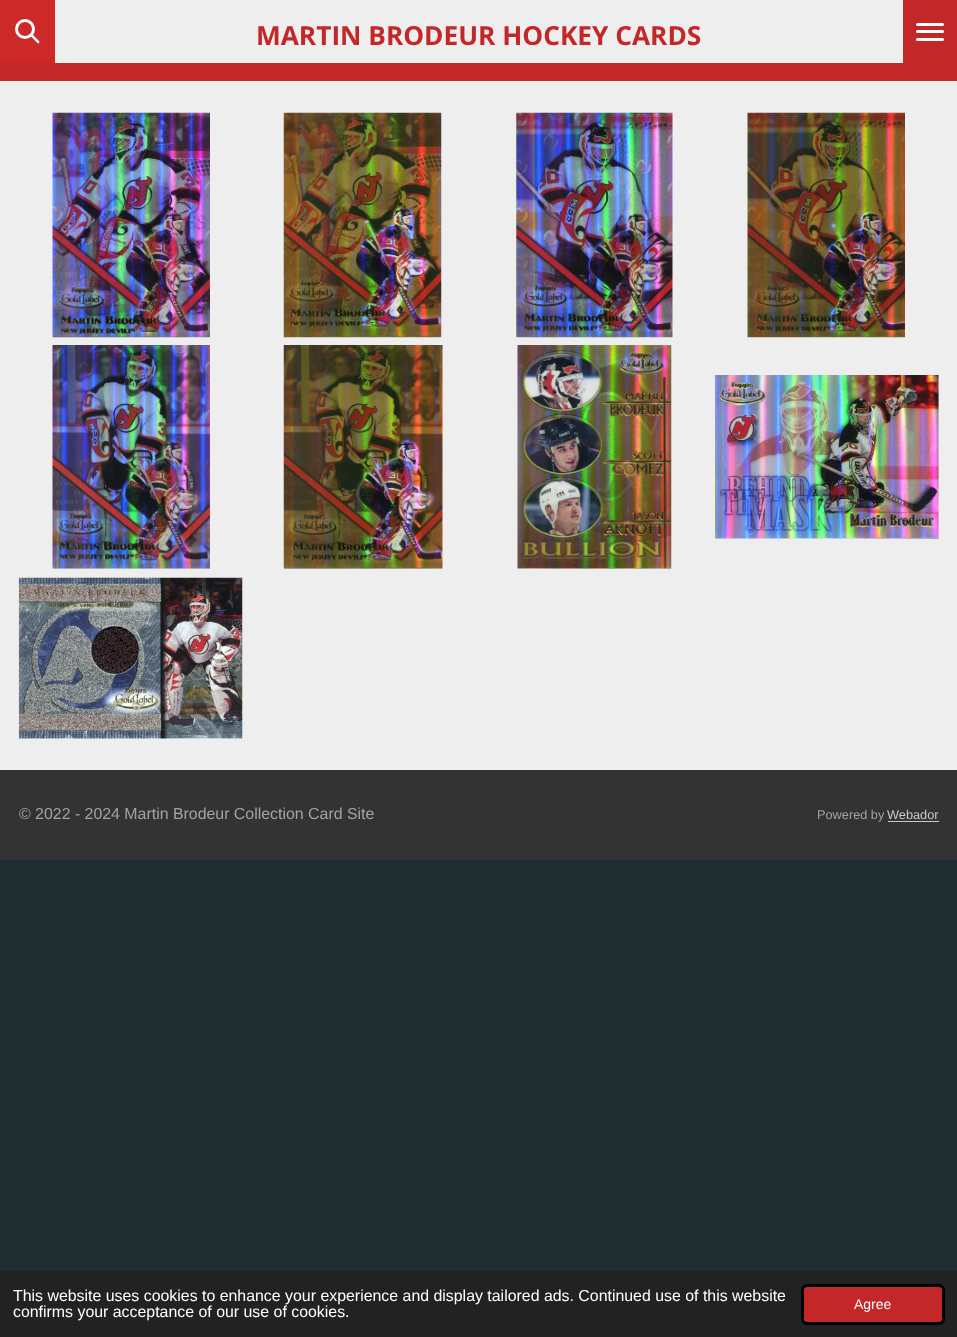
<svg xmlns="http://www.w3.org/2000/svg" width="957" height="1337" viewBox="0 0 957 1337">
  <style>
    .t1 { font: bold 26.25px Open Sans; fill: #c42727; }
    .t2 { font: 15.9px Liberation Sans; fill: #a3a3a3; }
    .t3 { font: 12.75px Liberation Sans; fill: #a3a3a3; }
    .t4 { font: 12.75px Liberation Sans; fill: #c9c9c9; }
    .t5 { font: 15.9px Liberation Sans; fill: #fff; }
    .t6 { font: 14px Liberation Sans; fill: #fff; }
  </style>
  <rect width="100%" height="100%" fill="#1f2d30"/>
  <rect x="0" y="0" width="55" height="63" fill="#cd2929"/>
  <circle cx="25" cy="29" r="8.5" fill="none" stroke="#fff" stroke-width="3"/>
  <path d="M31 33L39 41C39.5 41.5 39.5 42.5 39 43C38.5 43.5 38 43.5 37.5 43L29.5 35Z" fill="#fff"/>
  <rect x="55" y="0" width="848" height="63" fill="#eee"/>
  <text x="256" y="45" class="t1">MARTIN BRODEUR HOCKEY CARDS</text>
  <rect x="903" y="0" width="54" height="63" fill="#c42727"/>
  <rect x="916" y="30" width="28" height="3" rx="1.5" fill="#fff"/>
  <rect x="916" y="23" width="28" height="3" rx="1.5" fill="#fff"/>
  <rect x="916" y="38" width="28" height="3" rx="1.5" fill="#fff"/>
  <rect x="0" y="81" width="957" height="689" fill="#eee"/>
  <rect x="0" y="63" width="957" height="18" fill="#c42727"/>
  <image x="52" y="112" width="158" height="226" href="images/1.png"/>
  <image x="283" y="112" width="159" height="226" href="images/2.png"/>
  <image x="516" y="112" width="157" height="226" href="images/3.png"/>
  <image x="747" y="112" width="158" height="226" href="images/4.png"/>
  <image x="52" y="345" width="158" height="224" href="images/5.png"/>
  <image x="283" y="345" width="160" height="224" href="images/6.png"/>
  <image x="517" y="345" width="155" height="224" href="images/7.png"/>
  <image x="715" y="375" width="224" height="164" href="images/8.png"/>
  <image x="18" y="577" width="225" height="162" href="images/9.png"/>
  <rect x="0" y="770" width="957" height="90" fill="#333"/>
  <text x="19" y="819" class="t2">© 2022 - 2024 Martin Brodeur Collection Card Site</text>
  <text x="817" y="819" class="t3">Powered by</text>
  <text x="887" y="819" class="t4">Webador</text>
  <rect x="888" y="821" width="51" height="1" fill="#c9c9c9"/>
  <rect x="0" y="1271" width="957" height="66" fill="#222"/>
  <text x="13" y="1301" class="t5">This website uses cookies to enhance your experience and display tailored ads. Continued use of this website</text>
  <text x="13" y="1317" class="t5">confirms your acceptance of our use of cookies.</text>
  <rect x="802.5" y="1285.5" width="141" height="38" rx="4.5" fill="#c42727" stroke="#000" stroke-width="3"/>
  <text x="854" y="1309" class="t6">Agree</text>
</svg>
